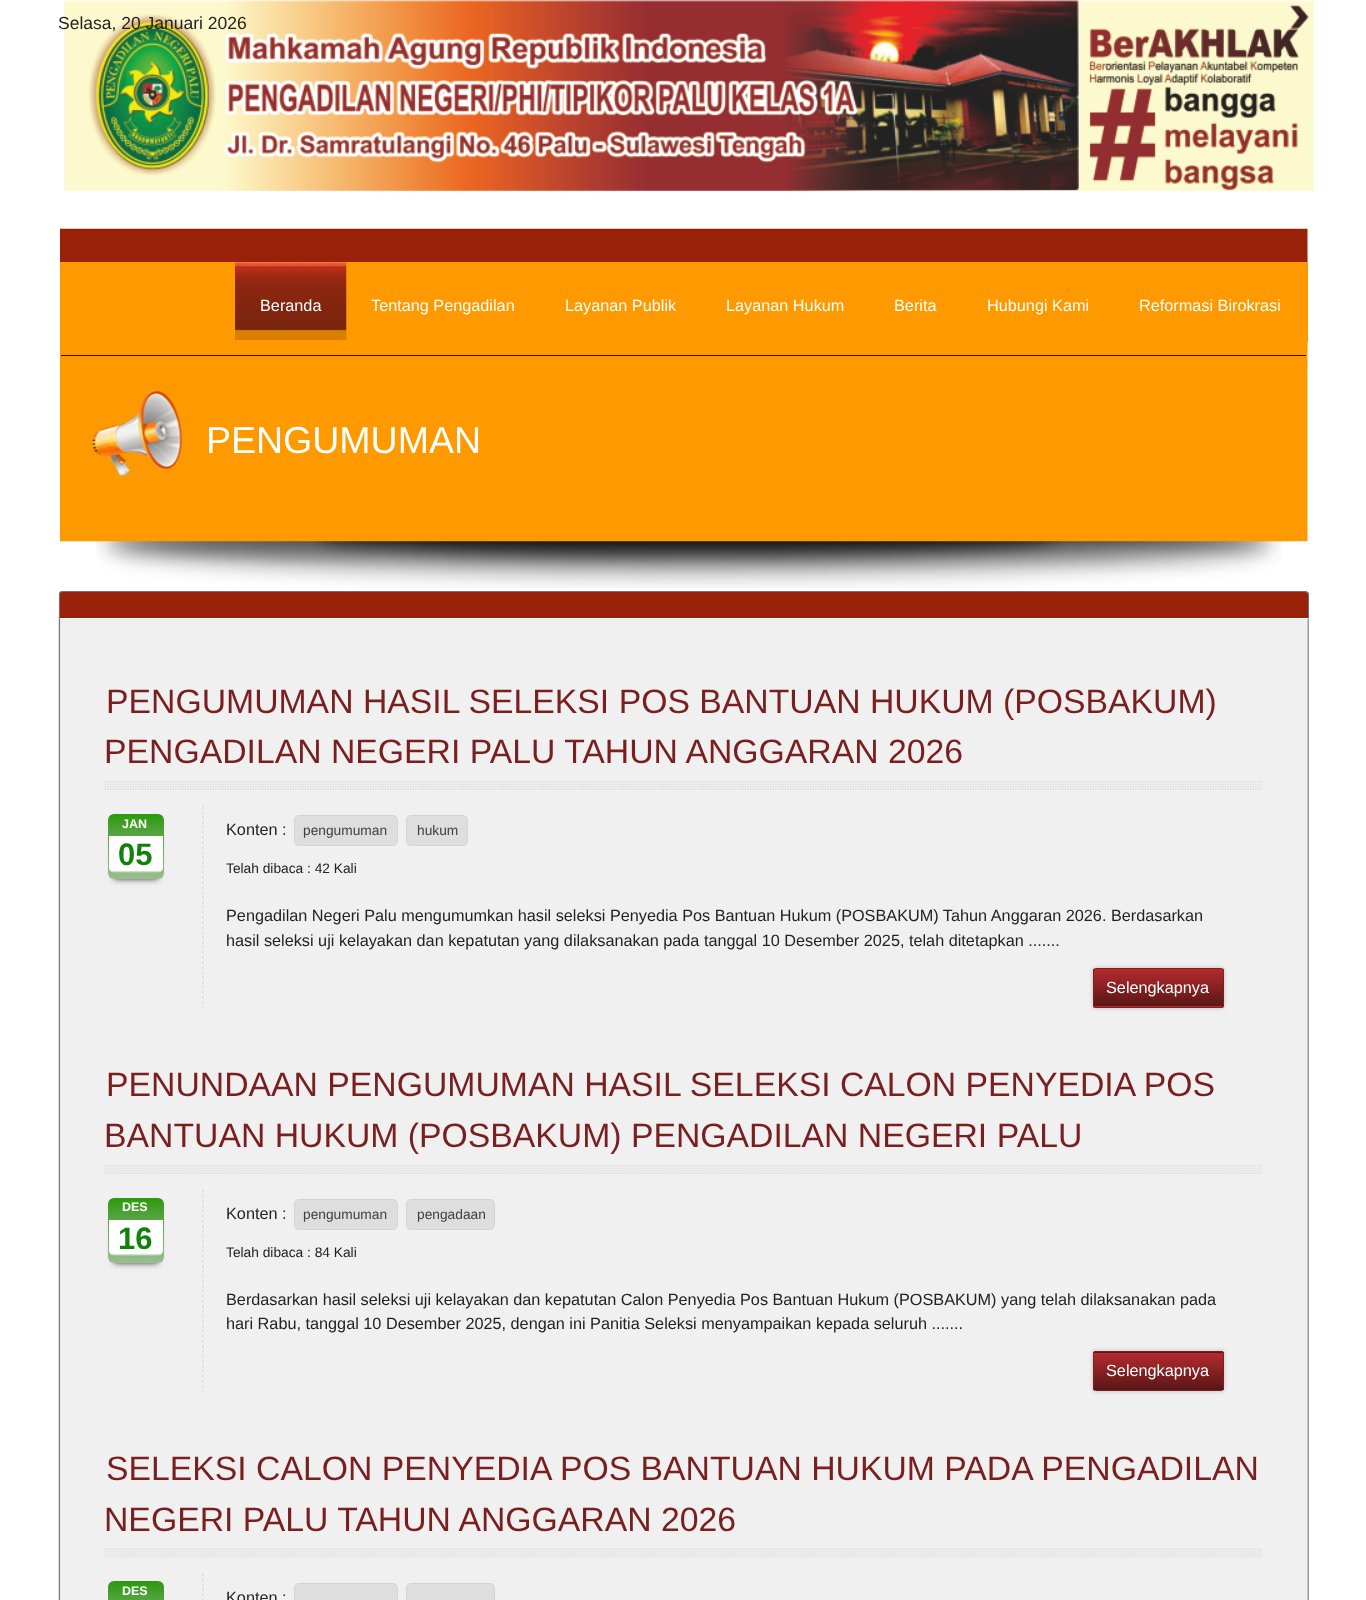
<svg xmlns="http://www.w3.org/2000/svg" width="1366" height="1600" viewBox="0 0 1366 1600">
  <style>
    .t1 { font: 17.5px Liberation Sans; fill: #222; }
    .t2 { font: 16.25px Liberation Sans; fill: #fff; }
    .t3 { font: 37.5px Liberation Sans; fill: #fff; }
    .t4 { font: 33.75px Liberation Sans; fill: #7a1f1f; }
    .t5 { font: bold 12.5px Liberation Sans; fill: #fff; }
    .t6 { font: bold 31px Liberation Sans; fill: #10820a; }
    .t7 { font: 16.25px Liberation Sans; fill: #222; }
    .t8 { font: 13.75px Liberation Sans; fill: #404040; }
    .t9 { font: 13.75px Liberation Sans; fill: #222; }
  </style>
  <defs>
    <clipPath id="clip1"><path d="M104 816H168V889H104ZM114 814H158C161.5 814 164 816.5 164 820V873C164 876.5 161.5 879 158 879H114C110.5 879 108 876.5 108 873V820C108 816.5 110.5 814 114 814Z" clip-rule="evenodd"/></clipPath>
    <linearGradient id="g1" gradientUnits="userSpaceOnUse" x1="136" y1="814" x2="136" y2="879"><stop offset="0" stop-color="#299a0b"/><stop offset="0.3" stop-color="#3f9926" stop-opacity="0.87"/><stop offset="1" stop-color="#5a9949" stop-opacity="0.58"/></linearGradient>
    <linearGradient id="g2" gradientUnits="userSpaceOnUse" x1="136" y1="836" x2="136" y2="873"><stop offset="0" stop-color="#fff"/><stop offset="0.93" stop-color="#fff"/><stop offset="1" stop-color="#fff" stop-opacity="0"/></linearGradient>
    <linearGradient id="g3" gradientUnits="userSpaceOnUse" x1="1158" y1="969" x2="1158" y2="1006"><stop offset="0" stop-color="#b32b2d"/><stop offset="1" stop-color="#5a1617"/></linearGradient>
    <clipPath id="clip2"><rect x="1093" y="968" width="131" height="40" rx="2.5"/></clipPath>
    <linearGradient id="g4" gradientUnits="userSpaceOnUse" x1="1158" y1="1006" x2="1158" y2="1044"><stop offset="0" stop-color="#b32b2d"/><stop offset="1" stop-color="#5a1617"/></linearGradient>
    <clipPath id="clip3"><path d="M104 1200H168V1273H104ZM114 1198H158C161.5 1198 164 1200.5 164 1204V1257C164 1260.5 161.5 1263 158 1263H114C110.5 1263 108 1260.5 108 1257V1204C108 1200.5 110.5 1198 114 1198Z" clip-rule="evenodd"/></clipPath>
    <linearGradient id="g5" gradientUnits="userSpaceOnUse" x1="136" y1="1198" x2="136" y2="1263"><stop offset="0" stop-color="#299a0b"/><stop offset="0.3" stop-color="#3f9926" stop-opacity="0.87"/><stop offset="1" stop-color="#5a9949" stop-opacity="0.58"/></linearGradient>
    <linearGradient id="g6" gradientUnits="userSpaceOnUse" x1="136" y1="1220" x2="136" y2="1256"><stop offset="0" stop-color="#fff"/><stop offset="0.93" stop-color="#fff"/><stop offset="1" stop-color="#fff" stop-opacity="0"/></linearGradient>
    <clipPath id="clip4"><rect x="1093" y="1351" width="131" height="40" rx="2.5"/></clipPath>
    <linearGradient id="g7" gradientUnits="userSpaceOnUse" x1="1158" y1="1315" x2="1158" y2="1353"><stop offset="0" stop-color="#b32b2d"/><stop offset="1" stop-color="#5a1617"/></linearGradient>
    <linearGradient id="g8" gradientUnits="userSpaceOnUse" x1="1158" y1="1353" x2="1158" y2="1390"><stop offset="0" stop-color="#b32b2d"/><stop offset="1" stop-color="#5a1617"/></linearGradient>
    <linearGradient id="g9" gradientUnits="userSpaceOnUse" x1="136" y1="1581" x2="136" y2="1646"><stop offset="0" stop-color="#299a0b"/><stop offset="0.3" stop-color="#56a440"/><stop offset="1" stop-color="#99be8f"/></linearGradient>
  </defs>
  <rect width="100%" height="100%" fill="#fff"/>
  <image x="63" y="0" width="1251" height="192" href="images/1.png"/>
  <text x="58" y="29" class="t1">Selasa, 20 Januari 2026</text>
  <image x="96" y="541" width="1186" height="48" href="images/5.png"/>
  <image x="60" y="228" width="1248" height="314" href="images/2.png"/>
  <rect x="60" y="262" width="1248" height="80" fill="#f90"/>
  <rect x="61" y="355" width="1245" height="1" fill="#300c0d"/>
  <image x="235" y="262" width="112" height="78" href="images/3.png"/>
  <text x="260" y="311" class="t2">Beranda</text>
  <text x="371" y="311" class="t2">Tentang Pengadilan</text>
  <text x="565" y="311" class="t2">Layanan Publik</text>
  <text x="726" y="311" class="t2">Layanan Hukum</text>
  <text x="894" y="311" class="t2">Berita</text>
  <text x="987" y="311" class="t2">Hubungi Kami</text>
  <text x="1139" y="311" class="t2">Reformasi Birokrasi</text>
  <image x="92" y="390" width="91" height="86" href="images/4.png"/>
  <text x="206" y="453" class="t3">PENGUMUMAN</text>
  <image x="58" y="616" width="1" height="2" href="images/7.png"/>
  <image x="58" y="617" width="1250" height="983" href="images/8.png"/>
  <image x="1307" y="618" width="2" height="982" href="images/15.png"/>
  <image x="58" y="591" width="1251" height="28" href="images/6.png"/>
  <path d="M62 592L61 593L60 592L61 591H1306L1308 592L1307 593L1305 592Z" fill="#737373"/>
  <path d="M1308 592L1309 593.5V619L1308 618V595C1308 594.5 1307.5 594 1307 593Z" fill="#737373"/>
  <path d="M1309 619H59L60 618H1308Z" fill="#fefefe"/>
  <path d="M59 618.5V595C59 594 59 593 60 592L60.5 593L60 595V617.5Z" fill="#737373"/>
  <image x="105" y="781" width="1158" height="9" href="images/9.png"/>
  <text x="106" y="713" class="t4">PENGUMUMAN HASIL SELEKSI POS BANTUAN HUKUM (POSBAKUM)</text>
  <text x="104" y="763" class="t4">PENGADILAN NEGERI PALU TAHUN ANGGARAN 2026</text>
  <g clip-path="url(#clip1)">
    <rect x="114" y="826" width="44" height="53" fill="#323232f5" filter="blur(3px)"/>
  </g>
  <rect x="108" y="814" width="56" height="65" rx="6" fill="url(#g1)"/>
  <text x="122" y="828" class="t5">JAN</text>
  <path d="M109 836H163V867C163 870.5 160.5 873 157 873H115C111.5 873 109 870.5 109 867Z" fill="url(#g2)"/>
  <text x="118" y="865" class="t6">05</text>
  <image x="202" y="806" width="3" height="202" href="images/10.png"/>
  <text x="226" y="835" class="t7">Konten :</text>
  <rect x="294.5" y="815.5" width="103" height="30" rx="4.5" fill="#dedede" stroke="#d4d4d4"/>
  <text x="303" y="835" class="t8">pengumuman</text>
  <rect x="406.5" y="815.5" width="61" height="30" rx="4.5" fill="#dedede" stroke="#d4d4d4"/>
  <text x="417" y="835" class="t8">hukum</text>
  <text x="226" y="873" class="t9">Telah dibaca : 42 Kali</text>
  <text x="226" y="921" class="t7">Pengadilan Negeri Palu mengumumkan hasil seleksi Penyedia Pos Bantuan Hukum (POSBAKUM) Tahun Anggaran 2026. Berdasarkan</text>
  <text x="226" y="946" class="t7">hasil seleksi uji kelayakan dan kepatutan yang dilaksanakan pada tanggal 10 Desember 2025, telah ditetapkan .......</text>
  <rect x="1093" y="968" width="131" height="40" rx="2.5" fill="#bababa" filter="blur(2px)"/>
  <rect x="1093" y="969" width="131" height="37" fill="url(#g3)"/>
  <g clip-path="url(#clip2)">
    <rect x="1093" y="1006" width="131" height="2" fill="url(#g4)"/>
  </g>
  <rect x="1093.5" y="968.5" width="130" height="39" rx="2" fill="none" stroke="#7b1f21"/>
  <text x="1106" y="993" class="t2">Selengkapnya</text>
  <image x="105" y="1165" width="1158" height="9" href="images/11.png"/>
  <text x="106" y="1096" class="t4">PENUNDAAN PENGUMUMAN HASIL SELEKSI CALON PENYEDIA POS</text>
  <text x="104" y="1147" class="t4">BANTUAN HUKUM (POSBAKUM) PENGADILAN NEGERI PALU</text>
  <g clip-path="url(#clip3)">
    <rect x="114" y="1210" width="44" height="53" fill="#323232f5" filter="blur(3px)"/>
  </g>
  <rect x="108" y="1198" width="56" height="65" rx="6" fill="url(#g5)"/>
  <text x="122" y="1211" class="t5">DES</text>
  <path d="M109 1220H163V1250C163 1253.5 160.5 1256 157 1256H115C111.5 1256 109 1253.5 109 1250Z" fill="url(#g6)"/>
  <text x="118" y="1249" class="t6">16</text>
  <image x="202" y="1190" width="3" height="202" href="images/12.png"/>
  <text x="226" y="1219" class="t7">Konten :</text>
  <rect x="294.5" y="1199.5" width="103" height="30" rx="4.5" fill="#dedede" stroke="#d4d4d4"/>
  <text x="303" y="1219" class="t8">pengumuman</text>
  <rect x="406.5" y="1199.5" width="88" height="30" rx="4.5" fill="#dedede" stroke="#d4d4d4"/>
  <text x="417" y="1219" class="t8">pengadaan</text>
  <text x="226" y="1257" class="t9">Telah dibaca : 84 Kali</text>
  <text x="226" y="1305" class="t7">Berdasarkan hasil seleksi uji kelayakan dan kepatutan Calon Penyedia Pos Bantuan Hukum (POSBAKUM) yang telah dilaksanakan pada</text>
  <text x="226" y="1329" class="t7">hari Rabu, tanggal 10 Desember 2025, dengan ini Panitia Seleksi menyampaikan kepada seluruh .......</text>
  <rect x="1093" y="1351" width="131" height="40" rx="2.5" fill="#bababa" filter="blur(2px)"/>
  <g clip-path="url(#clip4)">
    <rect x="1093" y="1351" width="131" height="2" fill="url(#g7)"/>
  </g>
  <rect x="1093" y="1353" width="131" height="37" fill="url(#g8)"/>
  <rect x="1093.5" y="1351.5" width="130" height="39" rx="2" fill="none" stroke="#7b1f21"/>
  <text x="1106" y="1376" class="t2">Selengkapnya</text>
  <image x="105" y="1548" width="1158" height="10" href="images/13.png"/>
  <text x="106" y="1480" class="t4">SELEKSI CALON PENYEDIA POS BANTUAN HUKUM PADA PENGADILAN</text>
  <text x="104" y="1531" class="t4">NEGERI PALU TAHUN ANGGARAN 2026</text>
  <rect x="108" y="1581" width="56" height="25" rx="6" fill="url(#g9)"/>
  <text x="122" y="1595" class="t5">DES</text>
  <image x="202" y="1574" width="3" height="26" href="images/14.png"/>
  <text x="226" y="1603" class="t7">Konten :</text>
  <rect x="294.5" y="1583.5" width="103" height="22" rx="4.5" fill="#dedede" stroke="#d4d4d4"/>
  <rect x="406.5" y="1583.5" width="88" height="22" rx="4.5" fill="#dedede" stroke="#d4d4d4"/>
</svg>
